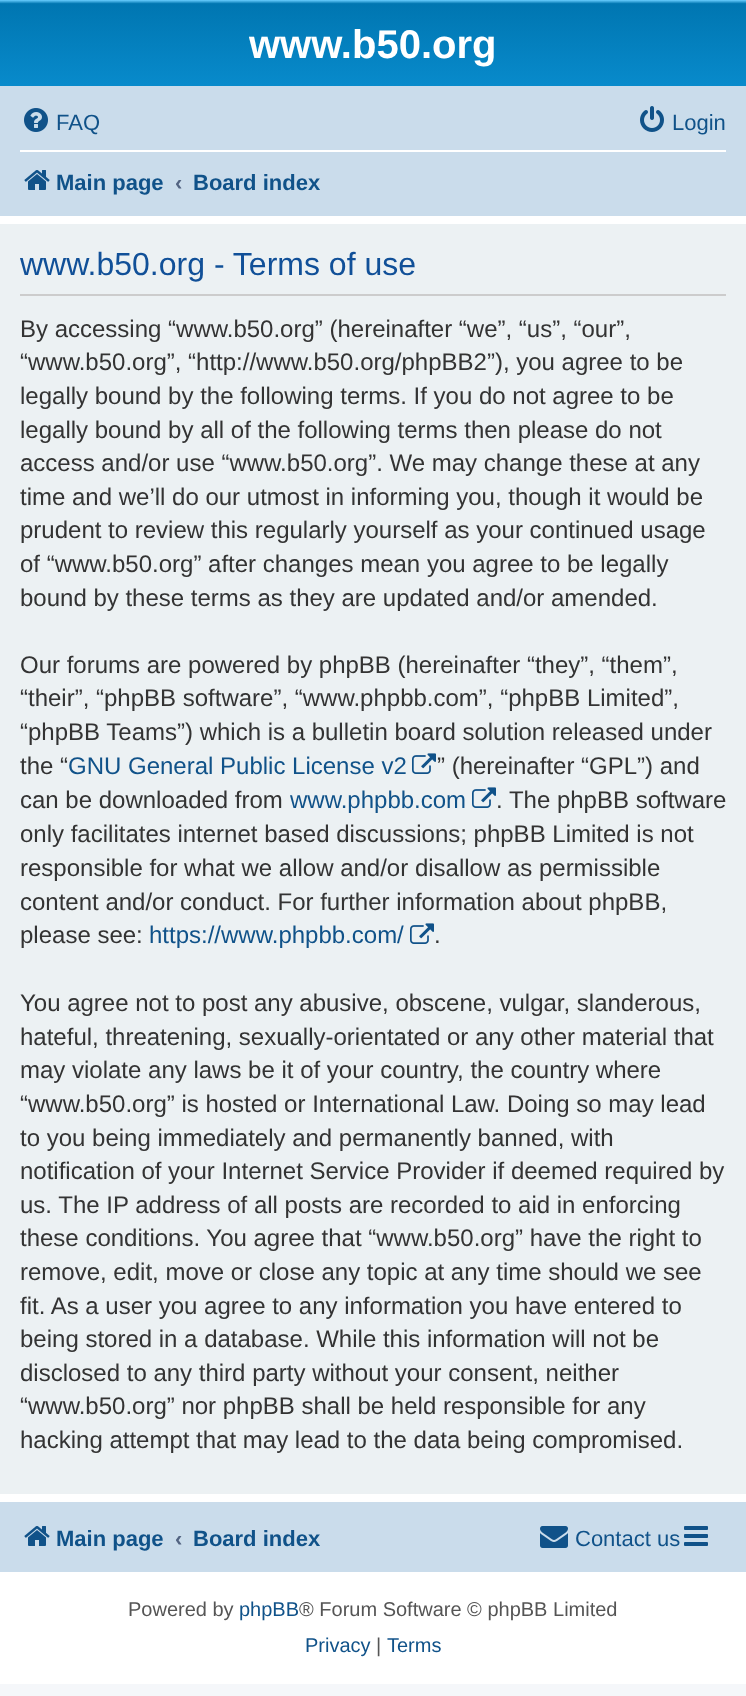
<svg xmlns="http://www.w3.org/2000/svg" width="746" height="1696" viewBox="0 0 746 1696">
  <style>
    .t1 { font: bold 40px Liberation Sans; fill: #fff; }
    .t2 { font: 22px Liberation Sans; fill: #105289; }
    .t3 { font: bold 22px Liberation Sans; fill: #105289; }
    .t4 { font: bold 22px Liberation Sans; fill: #536482; }
    .t5 { font: 32px Liberation Sans; fill: #115098; }
    .t6 { font: 24px Liberation Sans; fill: #333; }
    .t7 { font: 24px Liberation Sans; fill: #105289; }
    .t8 { font: 20px Liberation Sans; fill: #555; }
    .t9 { font: 20px Liberation Sans; fill: #105289; }
  </style>
  <defs>
    <linearGradient id="g1" gradientUnits="userSpaceOnUse" x1="373" y1="0" x2="373" y2="184"><stop offset="0" stop-color="#6aceff"/><stop offset="0.02" stop-color="#0076b1"/><stop offset="1" stop-color="#12a3eb"/></linearGradient>
  </defs>
  <rect width="100%" height="100%" fill="#f5f7fa"/>
  <rect x="0" y="216" width="746" height="1468" fill="#fff"/>
  <rect x="0" y="0" width="746" height="86" fill="url(#g1)"/>
  <text x="249" y="58" class="t1">www.b50.org</text>
  <rect x="0" y="86" width="746" height="130" fill="#cadceb"/>
  <image x="24" y="108" width="24" height="24" href="images/1.png"/>
  <text x="56" y="130" class="t2">FAQ</text>
  <image x="640" y="106" width="24" height="26" href="images/2.png"/>
  <text x="672" y="130" class="t2">Login</text>
  <rect x="20" y="150" width="706" height="2" fill="#fff"/>
  <image x="24" y="170" width="26" height="20" href="images/3.png"/>
  <text x="56" y="190" class="t3">Main page</text>
  <text x="175" y="190" class="t4">‹</text>
  <text x="193" y="190" class="t3">Board index</text>
  <rect x="0" y="224" width="746" height="1270" fill="#ecf1f3"/>
  <rect x="20" y="294" width="706" height="2" fill="#ccc"/>
  <text x="20" y="275" class="t5">www.b50.org - Terms of use</text>
  <text x="20" y="337" class="t6">By accessing “www.b50.org” (hereinafter “we”, “us”, “our”,</text>
  <text x="20" y="370" class="t6">“www.b50.org”, “http://www.b50.org/phpBB2”), you agree to be</text>
  <text x="20" y="404" class="t6">legally bound by the following terms. If you do not agree to be</text>
  <text x="20" y="438" class="t6">legally bound by all of the following terms then please do not</text>
  <text x="20" y="471" class="t6">access and/or use “www.b50.org”. We may change these at any</text>
  <text x="20" y="505" class="t6">time and we’ll do our utmost in informing you, though it would be</text>
  <text x="20" y="538" class="t6">prudent to review this regularly yourself as your continued usage</text>
  <text x="20" y="572" class="t6">of “www.b50.org” after changes mean you agree to be legally</text>
  <text x="20" y="606" class="t6">bound by these terms as they are updated and/or amended.</text>
  <text x="20" y="673" class="t6">Our forums are powered by phpBB (hereinafter “they”, “them”,</text>
  <text x="20" y="706" class="t6">“their”, “phpBB software”, “www.phpbb.com”, “phpBB Limited”,</text>
  <text x="20" y="740" class="t6">“phpBB Teams”) which is a bulletin board solution released under</text>
  <text x="20" y="774" class="t6">the “</text>
  <text x="68" y="774" class="t7">GNU General Public License v2</text>
  <image x="412" y="753" width="24" height="21" href="images/4.png"/>
  <text x="437" y="774" class="t6">” (hereinafter “GPL”) and</text>
  <text x="20" y="808" class="t6">can be downloaded from</text>
  <text x="290" y="808" class="t7">www.phpbb.com</text>
  <image x="472" y="787" width="24" height="21" href="images/4.png"/>
  <text x="496" y="808" class="t6">. The phpBB software</text>
  <text x="20" y="842" class="t6">only facilitates internet based discussions; phpBB Limited is not</text>
  <text x="20" y="876" class="t6">responsible for what we allow and/or disallow as permissible</text>
  <text x="20" y="910" class="t6">content and/or conduct. For further information about phpBB,</text>
  <text x="20" y="943" class="t6">please see:</text>
  <text x="149" y="943" class="t7">https://www.phpbb.com/</text>
  <image x="410" y="923" width="24" height="21" href="images/4.png"/>
  <text x="434" y="943" class="t6">.</text>
  <text x="20" y="1011" class="t6">You agree not to post any abusive, obscene, vulgar, slanderous,</text>
  <text x="20" y="1045" class="t6">hateful, threatening, sexually-orientated or any other material that</text>
  <text x="20" y="1078" class="t6">may violate any laws be it of your country, the country where</text>
  <text x="20" y="1112" class="t6">“www.b50.org” is hosted or International Law. Doing so may lead</text>
  <text x="20" y="1146" class="t6">to you being immediately and permanently banned, with</text>
  <text x="20" y="1179" class="t6">notification of your Internet Service Provider if deemed required by</text>
  <text x="20" y="1213" class="t6">us. The IP address of all posts are recorded to aid in enforcing</text>
  <text x="20" y="1246" class="t6">these conditions. You agree that “www.b50.org” have the right to</text>
  <text x="20" y="1280" class="t6">remove, edit, move or close any topic at any time should we see</text>
  <text x="20" y="1314" class="t6">fit. As a user you agree to any information you have entered to</text>
  <text x="20" y="1347" class="t6">being stored in a database. While this information will not be</text>
  <text x="20" y="1381" class="t6">disclosed to any third party without your consent, neither</text>
  <text x="20" y="1414" class="t6">“www.b50.org” nor phpBB shall be held responsible for any</text>
  <text x="20" y="1448" class="t6">hacking attempt that may lead to the data being compromised.</text>
  <rect x="0" y="1502" width="746" height="70" fill="#cadceb"/>
  <image x="24" y="1526" width="26" height="20" href="images/3.png"/>
  <text x="56" y="1546" class="t3">Main page</text>
  <text x="175" y="1546" class="t4">‹</text>
  <text x="193" y="1546" class="t3">Board index</text>
  <image x="540" y="1526" width="28" height="22" href="images/5.png"/>
  <text x="575" y="1546" class="t2">Contact us</text>
  <image x="684" y="1526" width="24" height="20" href="images/6.png"/>
  <text x="128" y="1616" class="t8">Powered by</text>
  <text x="239" y="1616" class="t9">phpBB</text>
  <text x="299" y="1616" class="t8">® Forum Software © phpBB Limited</text>
  <text x="305" y="1652" class="t9">Privacy</text>
  <text x="376" y="1652" class="t8">|</text>
  <text x="387" y="1652" class="t9">Terms</text>
</svg>
